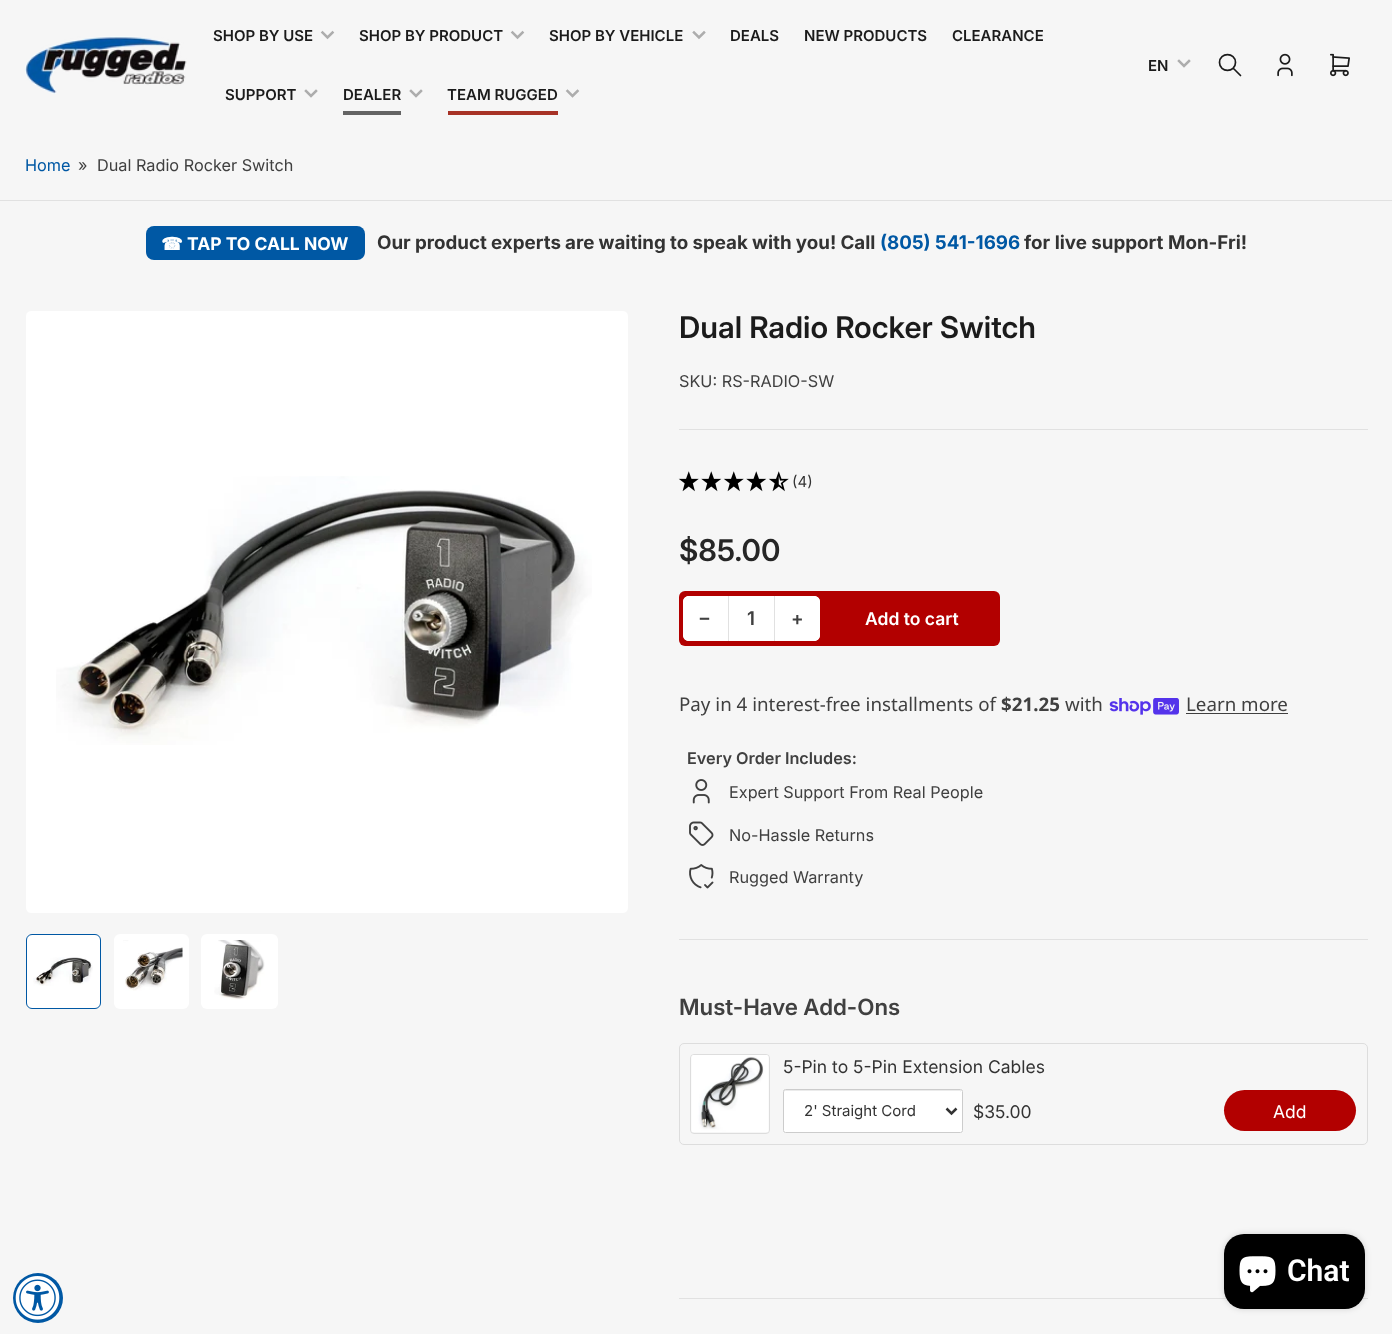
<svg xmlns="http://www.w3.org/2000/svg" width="1392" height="1334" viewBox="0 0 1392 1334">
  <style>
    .t1 { font: 600 15px 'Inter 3'; fill: #1b1b1b; }
    .t2 { font: 16.25px Inter; fill: #0058a4; }
    .t3 { font: 16.25px Inter; fill: #404040; }
    .t4 { font: bold 17.5px DejaVu Sans; fill: #fff; }
    .t5 { font: bold 17.5px Inter; fill: #fff; }
    .t6 { font: bold 18.75px Inter; fill: #333; }
    .t7 { font: bold 18.75px Inter; fill: #0058a4; }
    .t8 { font: 600 30px Inter; fill: #1b1b1b; }
    .t9 { font: 15px Inter; fill: #333; }
    .t10 { font: 600 30px Inter; fill: #262626; }
    .t11 { font: bold 18.75px Liberation Sans; fill: #404040; }
    .t12 { font: 600 18.75px 'Inter 3'; fill: #404040; }
    .t13 { font: 600 17.5px 'Inter 3'; fill: #fff; }
    .t14 { font: 18.75px Noto Sans; fill: #404040; }
    .t15 { font: bold 18.75px Noto Sans; fill: #404040; }
    .t16 { font: 600 16.25px 'Inter 3'; fill: #404040; }
    .t17 { font: 600 22.5px 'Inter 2'; fill: #404040; }
    .t18 { font: 17.5px Inter; fill: #333; }
    .t19 { font: 17.5px Inter; fill: #fff; }
    .t20 { font: 600 30px Roboto; fill: #fff; }
  </style>
  <rect width="100%" height="100%" fill="#f6f6f6"/>
  <image x="25" y="36" width="162" height="58" href="images/1.png"/>
  <text x="213" y="41" class="t1">SHOP BY USE</text>
  <path d="M332.5 32.5L327.5 37.5L322.5 32.5" fill="none" stroke="#adadad" stroke-width="2.5" stroke-linecap="square"/>
  <text x="359" y="41" class="t1">SHOP BY PRODUCT</text>
  <path d="M522.5 32.5L517.5 37.5L512.5 32.5" fill="none" stroke="#adadad" stroke-width="2.5" stroke-linecap="square"/>
  <text x="549" y="41" class="t1">SHOP BY VEHICLE</text>
  <path d="M704 32.5L699 37.5L694 32.5" fill="none" stroke="#adadad" stroke-width="2.5" stroke-linecap="square"/>
  <text x="730" y="41" class="t1">DEALS</text>
  <text x="804" y="41" class="t1">NEW PRODUCTS</text>
  <text x="952" y="41" class="t1">CLEARANCE</text>
  <text x="225" y="100" class="t1">SUPPORT</text>
  <path d="M316 91L311 96L306 91" fill="none" stroke="#adadad" stroke-width="2.5" stroke-linecap="square"/>
  <text x="343" y="100" class="t1">DEALER</text>
  <rect x="343" y="111" width="58" height="4" fill="#646464"/>
  <path d="M421 91L416 96L411 91" fill="none" stroke="#adadad" stroke-width="2.5" stroke-linecap="square"/>
  <text x="447" y="100" class="t1">TEAM RUGGED</text>
  <rect x="448" y="111" width="110" height="4" fill="#a73226"/>
  <path d="M577.5 91L572.5 96L567.5 91" fill="none" stroke="#adadad" stroke-width="2.5" stroke-linecap="square"/>
  <text x="1148" y="71" class="t1">EN</text>
  <path d="M1189 61L1184 66L1179 61" fill="none" stroke="#adadad" stroke-width="2.5" stroke-linecap="square"/>
  <path d="M1219.5 62.5C1219.5 73 1235.5 73 1235.5 62.5C1235.5 52 1219.5 52 1219.5 62.5M1240.5 75.5L1233.5 68.5" fill="none" stroke="#1b1b1b" stroke-width="1.7" stroke-linecap="round" stroke-linejoin="round"/>
  <image x="1277" y="53" width="16" height="24" href="images/2.png"/>
  <image x="1330" y="53" width="20" height="24" href="images/3.png"/>
  <rect x="0" y="200" width="1392" height="1" fill="#e1e1e1"/>
  <text x="25" y="171" class="t2">Home</text>
  <text x="78" y="171" class="t3">»</text>
  <text x="97" y="171" class="t3">Dual Radio Rocker Switch</text>
  <rect x="146" y="226" width="219" height="34" rx="8" fill="#0058a4"/>
  <text x="161" y="250" class="t4">☎</text>
  <text x="187" y="250" class="t5">TAP TO CALL NOW</text>
  <text x="377" y="249" word-spacing="-0.25" class="t6">Our product experts are waiting to speak with you! Call</text>
  <text x="880" y="249" class="t7">(805) 541-1696</text>
  <text x="1024" y="249" class="t6">for live support Mon-Fri!</text>
  <rect x="25.5" y="310.5" width="603" height="603" rx="5.5" fill="#fff" stroke="#f6f6f6"/>
  <image x="56" y="476" width="536" height="269" href="images/4.png"/>
  <rect x="26.5" y="934.5" width="74" height="74" rx="5.5" fill="#fff" stroke="#0058a4"/>
  <image x="33" y="957" width="60" height="29" href="images/5.png"/>
  <rect x="114" y="934" width="75" height="75" rx="6" fill="#fff"/>
  <image x="123" y="940" width="60" height="51" href="images/6.png"/>
  <rect x="201" y="934" width="77" height="75" rx="6" fill="#fff"/>
  <image x="214" y="940" width="51" height="60" href="images/7.png"/>
  <rect x="679" y="429" width="689" height="1" fill="#e1e1e1"/>
  <text x="679" y="338" class="t8">Dual Radio Rocker Switch</text>
  <text x="679" y="387" class="t3">SKU: RS-RADIO-SW</text>
  <image x="678" y="471" width="21" height="21" href="images/8.png"/>
  <image x="701" y="471" width="21" height="21" href="images/9.png"/>
  <image x="723" y="471" width="21" height="21" href="images/8.png"/>
  <image x="746" y="471" width="21" height="21" href="images/9.png"/>
  <image x="768" y="471" width="21" height="21" href="images/10.png"/>
  <text x="792" y="487" class="t9">(4)</text>
  <text x="679" y="561" class="t10">$85.00</text>
  <rect x="679" y="591" width="321" height="55" rx="6" fill="#b20000"/>
  <rect x="683" y="596" width="137" height="45" rx="6" fill="#fff"/>
  <path d="M689 596H728V641H689C685.5 641 683 638.5 683 635V602C683 598.5 685.5 596 689 596Z" fill="#fff"/>
  <text x="699" y="625" class="t11">−</text>
  <rect x="774" y="596" width="1" height="45" fill="#e1e1e1"/>
  <rect x="728" y="596" width="1" height="45" fill="#e1e1e1"/>
  <text x="747" y="625" class="t12">1</text>
  <path d="M775 596H814C817.5 596 820 598.5 820 602V635C820 638.5 817.5 641 814 641H775Z" fill="#fff"/>
  <text x="791" y="625" class="t12">+</text>
  <text x="865" y="625" class="t13">Add to cart</text>
  <text x="679" y="711" class="t14">Pay in 4 interest-free installments of</text>
  <text x="1001" y="711" class="t15">$21.25</text>
  <text x="1065" y="711" class="t14">with</text>
  <image x="1109" y="698" width="70" height="17" href="images/11.png"/>
  <text x="1186" y="711" class="t14">Learn more</text>
  <rect x="1186" y="713" width="102" height="1" fill="#404040"/>
  <text x="687" y="764" class="t16">Every Order Includes:</text>
  <image x="692" y="779" width="18" height="25" href="images/12.png"/>
  <text x="729" y="798" class="t3">Expert Support From Real People</text>
  <image x="689" y="821" width="25" height="25" href="images/13.png"/>
  <text x="729" y="841" class="t3">No-Hassle Returns</text>
  <image x="689" y="864" width="25" height="25" href="images/14.png"/>
  <text x="729" y="883" class="t3">Rugged Warranty</text>
  <rect x="679" y="939" width="689" height="1" fill="#e1e1e1"/>
  <text x="679" y="1015" class="t17">Must-Have Add-Ons</text>
  <rect x="679.5" y="1043.5" width="688" height="101" rx="4.5" fill="none" stroke="#ddd"/>
  <rect x="690.5" y="1054.5" width="79" height="79" rx="3.5" fill="none" stroke="#ddd"/>
  <image x="691" y="1055" width="78" height="77" href="images/15.png"/>
  <text x="783" y="1073" class="t18">5-Pin to 5-Pin Extension Cables</text>
  <rect x="783" y="1089" width="180" height="44" rx="2.5" fill="#fff"/>
  <path d="M785 1091H960L961 1092V1090H785C784 1090 784 1091 784 1092Z" fill="#ebebeb"/>
  <rect x="783.5" y="1089.5" width="179" height="43" rx="2" fill="none" stroke="#ccc"/>
  <path d="M946.5 1108.5L951.5 1113.5L956.5 1108.5" fill="none" stroke="#333" stroke-width="2.5"/>
  <text x="804" y="1116" class="t9">2' Straight Cord</text>
  <text x="973" y="1118" class="t18">$35.00</text>
  <rect x="1224" y="1090" width="132" height="41" rx="20.5" fill="#b20000"/>
  <text x="1273" y="1118" class="t19">Add</text>
  <rect x="679" y="1298" width="689" height="1" fill="#e1e1e1"/>
  <rect x="1224" y="1234" width="141" height="75" rx="20" fill="#00000026" filter="blur(3px)"/>
  <rect x="1224" y="1234" width="141" height="75" rx="20" fill="#000"/>
  <image x="1239" y="1256" width="37" height="37" href="images/16.png"/>
  <text x="1287" y="1281" class="t20">Chat</text>
  <circle cx="38" cy="1298" r="25" fill="#0058a4"/>
  <image x="15" y="1276" width="45" height="44" href="images/17.png"/>
</svg>
